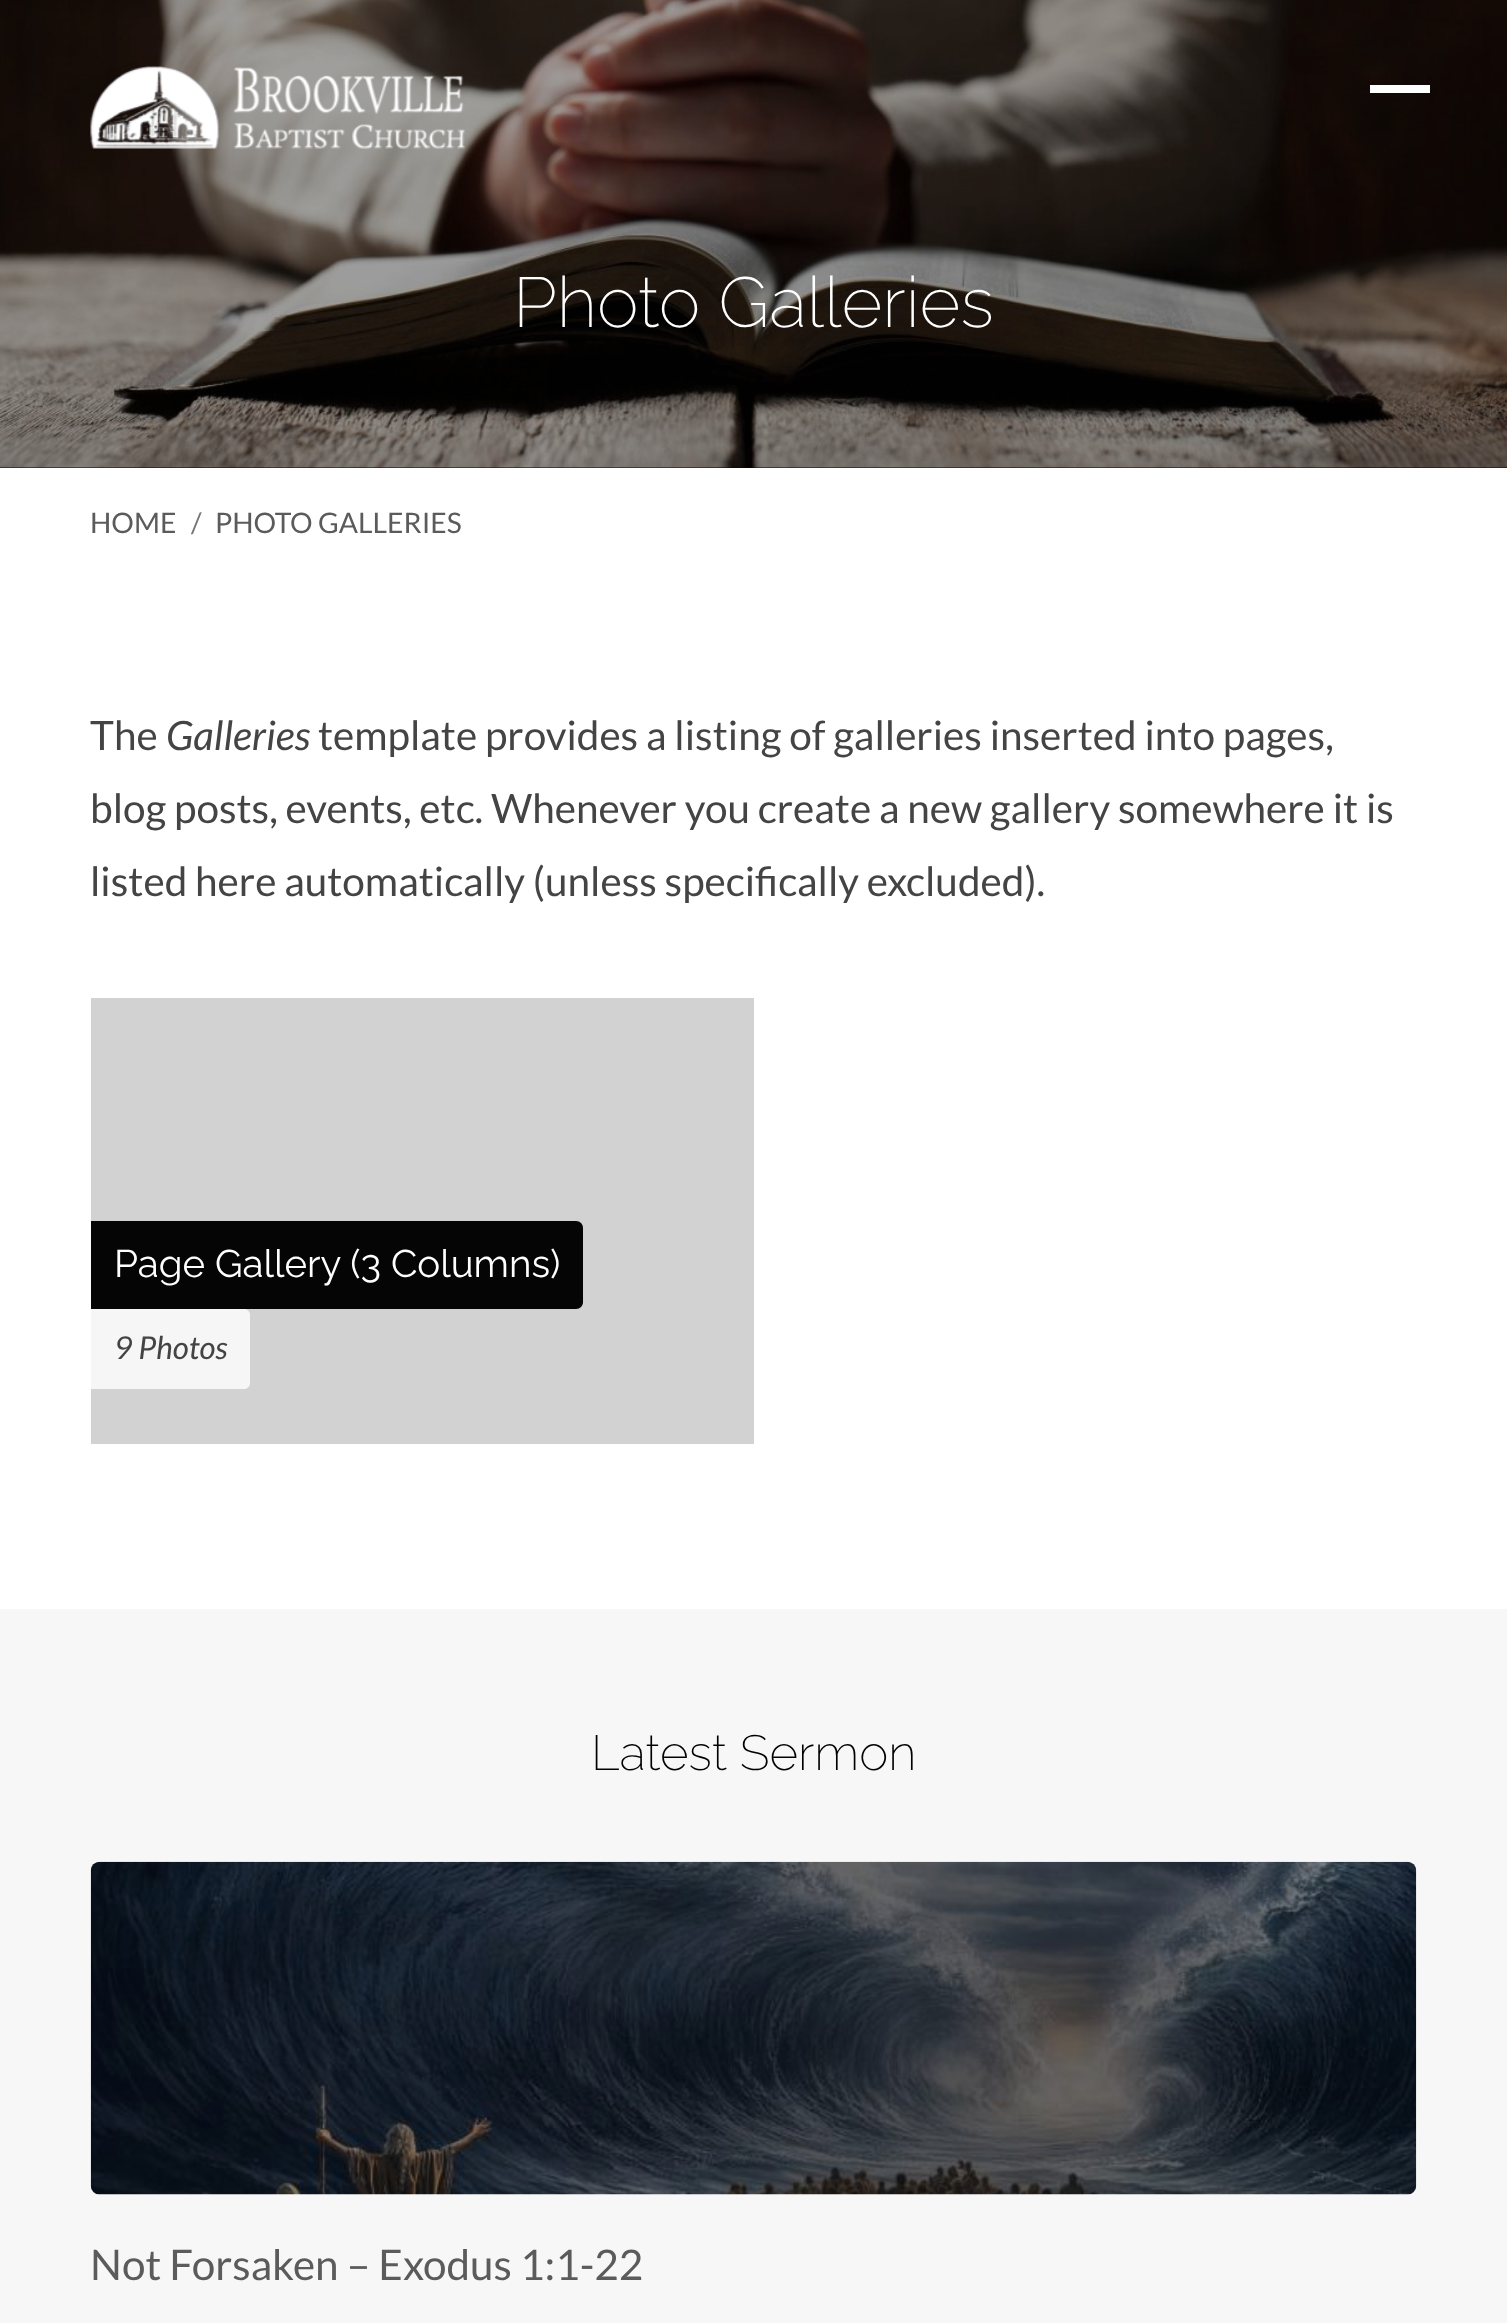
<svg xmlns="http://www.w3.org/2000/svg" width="1507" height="2323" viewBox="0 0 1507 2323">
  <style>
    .t1 { font: 200 70.5px Raleway; fill: #fff; }
    .t2 { font: 28.25px Lato; fill: #5b5b5b; }
    .t3 { font: 28.25px Lato; fill: #777; }
    .t4 { font: 40.5px Lato; fill: #444; }
    .t5 { font: italic 40.5px Lato; fill: #444; }
    .t6 { font: 38.5px Raleway; fill: #fff; }
    .t7 { font: italic 31.5px Lato; fill: #444; }
    .t8 { font: 200 49.25px Raleway; fill: #000; }
    .t9 { font: 42.25px Lato; fill: #5b5b5b; }
  </style>
  <rect width="100%" height="100%" fill="#fff"/>
  <rect x="0" y="0" width="1507" height="468" fill="#050505"/>
  <image x="0" y="0" width="1507" height="468" href="images/2.png"/>
  <image x="90" y="66" width="376" height="83" href="images/1.png"/>
  <rect x="1370" y="85" width="60" height="8" fill="#fff"/>
  <text x="513" y="327" class="t1">Photo Galleries</text>
  <text x="90" y="533" class="t2">HOME</text>
  <text x="191" y="533" class="t3">/</text>
  <text x="215" y="533" class="t2">PHOTO GALLERIES</text>
  <text x="90" y="750" class="t4">The</text>
  <text x="166" y="750" class="t5">Galleries</text>
  <text x="318" y="750" class="t4">template provides a listing of galleries inserted into pages,</text>
  <text x="90" y="823" class="t4">blog posts, events, etc. Whenever you create a new gallery somewhere it is</text>
  <text x="90" y="896" class="t4">listed here automatically (unless specifically excluded).</text>
  <rect x="91" y="998" width="663" height="446" fill="#d2d2d2"/>
  <path d="M91 1221H576C580 1221 583 1224 583 1228V1302C583 1306 580 1309 576 1309H91Z" fill="#050505"/>
  <text x="114" y="1277" class="t6">Page Gallery (3 Columns)</text>
  <path d="M91 1309H244C247.5 1309 250 1311.5 250 1315V1383C250 1386.5 247.5 1389 244 1389H91Z" fill="#f6f6f6"/>
  <text x="114" y="1359" class="t7">9 Photos</text>
  <rect x="0" y="1609" width="1507" height="714" fill="#f7f7f7"/>
  <text x="591" y="1770" class="t8">Latest Sermon</text>
  <image x="90" y="1861" width="1327" height="334" href="images/3.png"/>
  <text x="90" y="2280" class="t9">Not Forsaken – Exodus 1:1-22</text>
</svg>
